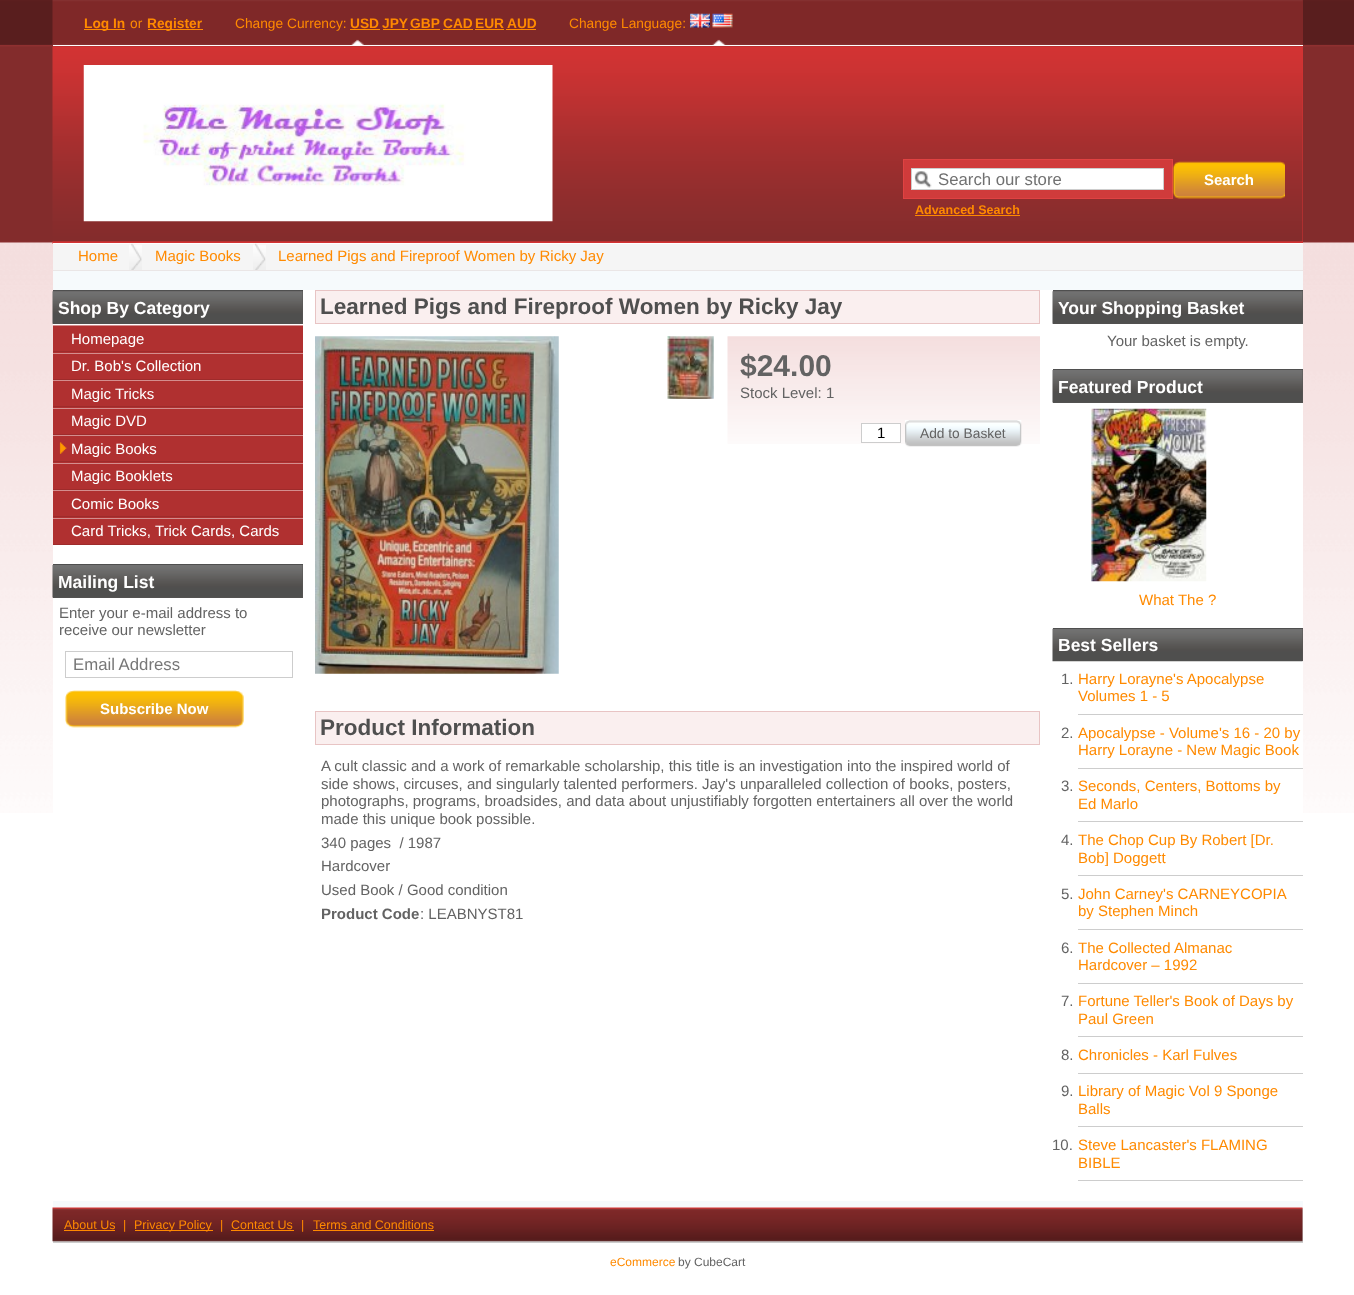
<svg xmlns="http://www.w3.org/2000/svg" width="1354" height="1295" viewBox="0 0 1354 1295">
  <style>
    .t1 { font: bold 13.75px Liberation Sans; fill: #ff8a00; }
    .t2 { font: 13.75px Liberation Sans; fill: #ff8a00; }
    .t3 { font: 16.75px Liberation Sans; fill: #717171; }
    .t4 { font: bold 15px Liberation Sans; fill: #fff; }
    .t5 { font: bold 12.5px Liberation Sans; fill: #ff8a00; }
    .t6 { font: 15px Liberation Sans; fill: #ff8a00; }
    .t7 { font: bold 17.5px Liberation Sans; fill: #fff; }
    .t8 { font: 15px Liberation Sans; fill: #fff; }
    .t9 { font: 15px Liberation Sans; fill: #636363; }
    .t10 { font: 16.75px Liberation Sans; fill: #777; }
    .t11 { font: bold 22.5px Liberation Sans; fill: #4f4f4f; }
    .t12 { font: bold 30px Liberation Sans; fill: #636363; }
    .t13 { font: 15px Liberation Sans; fill: #000; }
    .t14 { font: 13.75px Liberation Sans; fill: #636363; }
    .t15 { font: bold 15px Liberation Sans; fill: #636363; }
    .t16 { font: 12.5px Liberation Sans; fill: #ff8a00; }
    .t17 { font: 12px Liberation Sans; fill: #ff8a00; }
    .t18 { font: 12px Liberation Sans; fill: #636363; }
  </style>
  <rect width="100%" height="100%" fill="#fff"/>
  <image x="0" y="0" width="1354" height="813" href="images/1.png"/>
  <rect x="53" y="271" width="1250" height="937" fill="#f6fafc"/>
  <rect x="1302" y="0" width="1" height="45" fill="#7f2828"/>
  <image x="52" y="0" width="1251" height="47" href="images/2.png"/>
  <rect x="53" y="45" width="1250" height="1" fill="#fff"/>
  <rect x="84" y="29" width="41" height="1" fill="#ff8a00"/>
  <text x="84" y="28" class="t1">Log In</text>
  <text x="130" y="28" class="t2">or</text>
  <rect x="148" y="29" width="55" height="1" fill="#ff8a00"/>
  <text x="147" y="28" class="t1">Register</text>
  <text x="235" y="28" class="t2">Change Currency:</text>
  <image x="351" y="39" width="13" height="6" href="images/3.png"/>
  <text x="350" y="28" class="t1">USD</text>
  <rect x="350" y="29" width="30" height="1" fill="#ff8a00"/>
  <text x="382" y="28" class="t1">JPY</text>
  <rect x="383" y="29" width="25" height="1" fill="#ff8a00"/>
  <text x="410" y="28" class="t1">GBP</text>
  <rect x="410" y="29" width="30" height="1" fill="#ff8a00"/>
  <text x="443" y="28" class="t1">CAD</text>
  <rect x="443" y="29" width="30" height="1" fill="#ff8a00"/>
  <text x="475" y="28" class="t1">EUR</text>
  <rect x="475" y="29" width="29" height="1" fill="#ff8a00"/>
  <text x="507" y="28" class="t1">AUD</text>
  <rect x="506" y="29" width="30" height="1" fill="#ff8a00"/>
  <text x="569" y="28" class="t2">Change Language:</text>
  <image x="690" y="13" width="20" height="15" href="images/4.png"/>
  <image x="712" y="39" width="14" height="6" href="images/5.png"/>
  <image x="712" y="13" width="21" height="15" href="images/6.png"/>
  <rect x="53" y="46" width="1250" height="197" fill="#d23333"/>
  <image x="52" y="46" width="1251" height="198" href="images/7.png"/>
  <rect x="53" y="243" width="1250" height="1" fill="#fff"/>
  <image x="83" y="65" width="470" height="157" href="images/8.png"/>
  <rect x="903.5" y="159.5" width="269" height="39" fill="#d03b3b" stroke="#e04242"/>
  <rect x="912" y="169" width="251" height="20" fill="#fff"/>
  <image x="914" y="171" width="18" height="17" href="images/9.png"/>
  <rect x="911.5" y="168.5" width="252" height="21" fill="none" stroke="#cdcdcd"/>
  <text x="938" y="185" class="t3">Search our store</text>
  <image x="1172" y="161" width="113" height="38" href="images/10.png"/>
  <text x="1204" y="185" class="t4">Search</text>
  <text x="915" y="214" class="t5">Advanced Search</text>
  <rect x="915" y="215" width="105" height="1" fill="#ff8a00"/>
  <rect x="53" y="244" width="1250" height="26" fill="#f5f5f5"/>
  <rect x="53" y="270" width="1250" height="1" fill="#eae6e6"/>
  <image x="129" y="243" width="13" height="27" href="images/11.png"/>
  <text x="78" y="261" class="t6">Home</text>
  <image x="253" y="243" width="13" height="27" href="images/12.png"/>
  <text x="155" y="261" class="t6">Magic Books</text>
  <text x="278" y="261" class="t6">Learned Pigs and Fireproof Women by Ricky Jay</text>
  <rect x="53" y="290" width="1250" height="911" fill="#fff"/>
  <rect x="53" y="291" width="250" height="33" fill="#595755"/>
  <image x="52" y="291" width="251" height="33" href="images/13.png"/>
  <rect x="53" y="290" width="250" height="1" fill="#4f4f4f"/>
  <text x="58" y="314" class="t7">Shop By Category</text>
  <rect x="53" y="326" width="250" height="27" fill="#b03030"/>
  <rect x="53" y="325" width="250" height="1" fill="#d48d8d"/>
  <rect x="53" y="351" width="250" height="1" fill="#9e2b2b"/>
  <text x="71" y="344" class="t8">Homepage</text>
  <rect x="53" y="354" width="250" height="25" fill="#b03030"/>
  <rect x="53" y="353" width="250" height="1" fill="#d48d8d"/>
  <rect x="53" y="379" width="250" height="1" fill="#9e2b2b"/>
  <text x="71" y="371" class="t8">Dr. Bob's Collection</text>
  <rect x="53" y="381" width="250" height="27" fill="#b03030"/>
  <rect x="53" y="380" width="250" height="1" fill="#d48d8d"/>
  <rect x="53" y="406" width="250" height="1" fill="#9e2b2b"/>
  <text x="71" y="399" class="t8">Magic Tricks</text>
  <rect x="53" y="409" width="250" height="25" fill="#b03030"/>
  <rect x="53" y="408" width="250" height="1" fill="#d48d8d"/>
  <rect x="53" y="434" width="250" height="1" fill="#9e2b2b"/>
  <text x="71" y="426" class="t8">Magic DVD</text>
  <rect x="53" y="436" width="250" height="27" fill="#b03030"/>
  <image x="59" y="442" width="8" height="12" href="images/14.png"/>
  <rect x="53" y="435" width="250" height="1" fill="#d48d8d"/>
  <rect x="53" y="461" width="250" height="1" fill="#9e2b2b"/>
  <text x="71" y="454" class="t8">Magic Books</text>
  <rect x="53" y="464" width="250" height="25" fill="#b03030"/>
  <rect x="53" y="463" width="250" height="1" fill="#d48d8d"/>
  <rect x="53" y="489" width="250" height="1" fill="#9e2b2b"/>
  <text x="71" y="481" class="t8">Magic Booklets</text>
  <rect x="53" y="491" width="250" height="27" fill="#b03030"/>
  <rect x="53" y="490" width="250" height="1" fill="#d48d8d"/>
  <rect x="53" y="516" width="250" height="1" fill="#9e2b2b"/>
  <text x="71" y="509" class="t8">Comic Books</text>
  <rect x="53" y="519" width="250" height="25" fill="#b03030"/>
  <rect x="53" y="518" width="250" height="1" fill="#d48d8d"/>
  <rect x="53" y="544" width="250" height="1" fill="#9e2b2b"/>
  <text x="71" y="536" class="t8">Card Tricks, Trick Cards, Cards</text>
  <rect x="53" y="565" width="250" height="33" fill="#595755"/>
  <image x="52" y="565" width="251" height="33" href="images/15.png"/>
  <rect x="53" y="564" width="250" height="1" fill="#4f4f4f"/>
  <text x="58" y="588" class="t7">Mailing List</text>
  <text x="59" y="618" class="t9">Enter your e-mail address to</text>
  <text x="59" y="635" class="t9">receive our newsletter</text>
  <rect x="65.5" y="651.5" width="227" height="26" fill="none" stroke="#cdcdcd"/>
  <text x="73" y="670" class="t10">Email Address</text>
  <image x="65" y="690" width="179" height="38" href="images/16.png"/>
  <text x="100" y="714" class="t4">Subscribe Now</text>
  <rect x="315.5" y="290.5" width="724" height="33" fill="#faefef" stroke="#e8c4c4"/>
  <text x="320" y="314" class="t11">Learned Pigs and Fireproof Women by Ricky Jay</text>
  <image x="315" y="336" width="244" height="338" href="images/17.png"/>
  <image x="667" y="336" width="47" height="63" href="images/18.png"/>
  <image x="727" y="336" width="313" height="108" href="images/19.png"/>
  <text x="740" y="376" class="t12">$24.00</text>
  <text x="740" y="398" class="t9">Stock Level: 1</text>
  <rect x="861.5" y="423.5" width="39" height="19" fill="#fff" stroke="#cdcdcd"/>
  <text x="877" y="438" class="t13">1</text>
  <image x="905" y="420" width="117" height="27" href="images/20.png"/>
  <text x="920" y="438" class="t14">Add to Basket</text>
  <rect x="315.5" y="711.5" width="724" height="33" fill="#faefef" stroke="#e8c4c4"/>
  <text x="320" y="735" class="t11">Product Information</text>
  <text x="321" y="771" class="t9">A cult classic and a work of remarkable scholarship, this title is an investigation into the inspired world of</text>
  <text x="321" y="789" class="t9">side shows, circuses, and singularly talented performers. Jay's unparalleled collection of books, posters,</text>
  <text x="321" y="806" class="t9">photographs, programs, broadsides, and data about unjustifiably forgotten entertainers all over the world</text>
  <text x="321" y="824" class="t9">made this unique book possible.</text>
  <text x="321" y="848" class="t9" xml:space="preserve">340 pages  / 1987</text>
  <text x="321" y="871" class="t9">Hardcover</text>
  <text x="321" y="895" class="t9">Used Book / Good condition</text>
  <text x="321" y="919" class="t15">Product Code</text>
  <text x="420" y="919" class="t9">: LEABNYST81</text>
  <rect x="1053" y="291" width="250" height="33" fill="#595755"/>
  <image x="1052" y="291" width="251" height="33" href="images/21.png"/>
  <rect x="1053" y="290" width="250" height="1" fill="#4f4f4f"/>
  <text x="1058" y="314" class="t7">Your Shopping Basket</text>
  <text x="1107" y="346" class="t9">Your basket is empty.</text>
  <rect x="1053" y="370" width="250" height="33" fill="#595755"/>
  <image x="1052" y="370" width="251" height="33" href="images/22.png"/>
  <rect x="1053" y="369" width="250" height="1" fill="#4f4f4f"/>
  <text x="1058" y="393" class="t7">Featured Product</text>
  <image x="1091" y="408" width="116" height="174" href="images/23.png"/>
  <text x="1139" y="605" class="t6">What The ?</text>
  <rect x="1302" y="629" width="1" height="32" fill="#595755"/>
  <image x="1052" y="628" width="251" height="34" href="images/24.png"/>
  <rect x="1053" y="628" width="250" height="1" fill="#4f4f4f"/>
  <text x="1058" y="651" class="t7">Best Sellers</text>
  <rect x="1078" y="714" width="225" height="1" fill="#cdcdcd"/>
  <text x="1061" y="684" class="t9">1.</text>
  <text x="1078" y="684" class="t6">Harry Lorayne's Apocalypse</text>
  <text x="1078" y="701" class="t6">Volumes 1 - 5</text>
  <rect x="1078" y="768" width="225" height="1" fill="#cdcdcd"/>
  <text x="1061" y="738" class="t9">2.</text>
  <text x="1078" y="738" class="t6">Apocalypse - Volume's 16 - 20 by</text>
  <text x="1078" y="755" class="t6">Harry Lorayne - New Magic Book</text>
  <rect x="1078" y="821" width="225" height="1" fill="#cdcdcd"/>
  <text x="1061" y="791" class="t9">3.</text>
  <text x="1078" y="791" class="t6">Seconds, Centers, Bottoms by</text>
  <text x="1078" y="809" class="t6">Ed Marlo</text>
  <rect x="1078" y="875" width="225" height="1" fill="#cdcdcd"/>
  <text x="1061" y="845" class="t9">4.</text>
  <text x="1078" y="845" class="t6">The Chop Cup By Robert [Dr.</text>
  <text x="1078" y="863" class="t6">Bob] Doggett</text>
  <rect x="1078" y="929" width="225" height="1" fill="#cdcdcd"/>
  <text x="1061" y="899" class="t9">5.</text>
  <text x="1078" y="899" class="t6">John Carney's CARNEYCOPIA</text>
  <text x="1078" y="916" class="t6">by Stephen Minch</text>
  <rect x="1078" y="983" width="225" height="1" fill="#cdcdcd"/>
  <text x="1061" y="953" class="t9">6.</text>
  <text x="1078" y="953" class="t6">The Collected Almanac</text>
  <text x="1078" y="970" class="t6">Hardcover – 1992</text>
  <rect x="1078" y="1036" width="225" height="1" fill="#cdcdcd"/>
  <text x="1061" y="1006" class="t9">7.</text>
  <text x="1078" y="1006" class="t6">Fortune Teller's Book of Days by</text>
  <text x="1078" y="1024" class="t6">Paul Green</text>
  <rect x="1078" y="1073" width="225" height="1" fill="#cdcdcd"/>
  <text x="1061" y="1060" class="t9">8.</text>
  <text x="1078" y="1060" class="t6">Chronicles - Karl Fulves</text>
  <rect x="1078" y="1126" width="225" height="1" fill="#cdcdcd"/>
  <text x="1061" y="1096" class="t9">9.</text>
  <text x="1078" y="1096" class="t6">Library of Magic Vol 9 Sponge</text>
  <text x="1078" y="1114" class="t6">Balls</text>
  <rect x="1078" y="1180" width="225" height="1" fill="#cdcdcd"/>
  <text x="1052" y="1150" class="t9">10.</text>
  <text x="1078" y="1150" class="t6">Steve Lancaster's FLAMING</text>
  <text x="1078" y="1168" class="t6">BIBLE</text>
  <rect x="53" y="1208" width="1250" height="35" fill="#ccc"/>
  <image x="52" y="1207" width="1251" height="35" href="images/25.png"/>
  <text x="64" y="1229" class="t16">About Us</text>
  <rect x="64" y="1230" width="51" height="1" fill="#ff8a00"/>
  <text x="123" y="1229" class="t16">|</text>
  <rect x="135" y="1230" width="78" height="1" fill="#ff8a00"/>
  <text x="134" y="1229" class="t16">Privacy Policy</text>
  <text x="220" y="1229" class="t16">|</text>
  <text x="231" y="1229" class="t16">Contact Us</text>
  <rect x="231" y="1230" width="63" height="1" fill="#ff8a00"/>
  <text x="301" y="1229" class="t16">|</text>
  <text x="313" y="1229" class="t16">Terms and Conditions</text>
  <rect x="313" y="1230" width="121" height="1" fill="#ff8a00"/>
  <text x="610" y="1266" class="t17">eCommerce</text>
  <text x="678" y="1266" class="t18">by CubeCart</text>
</svg>
